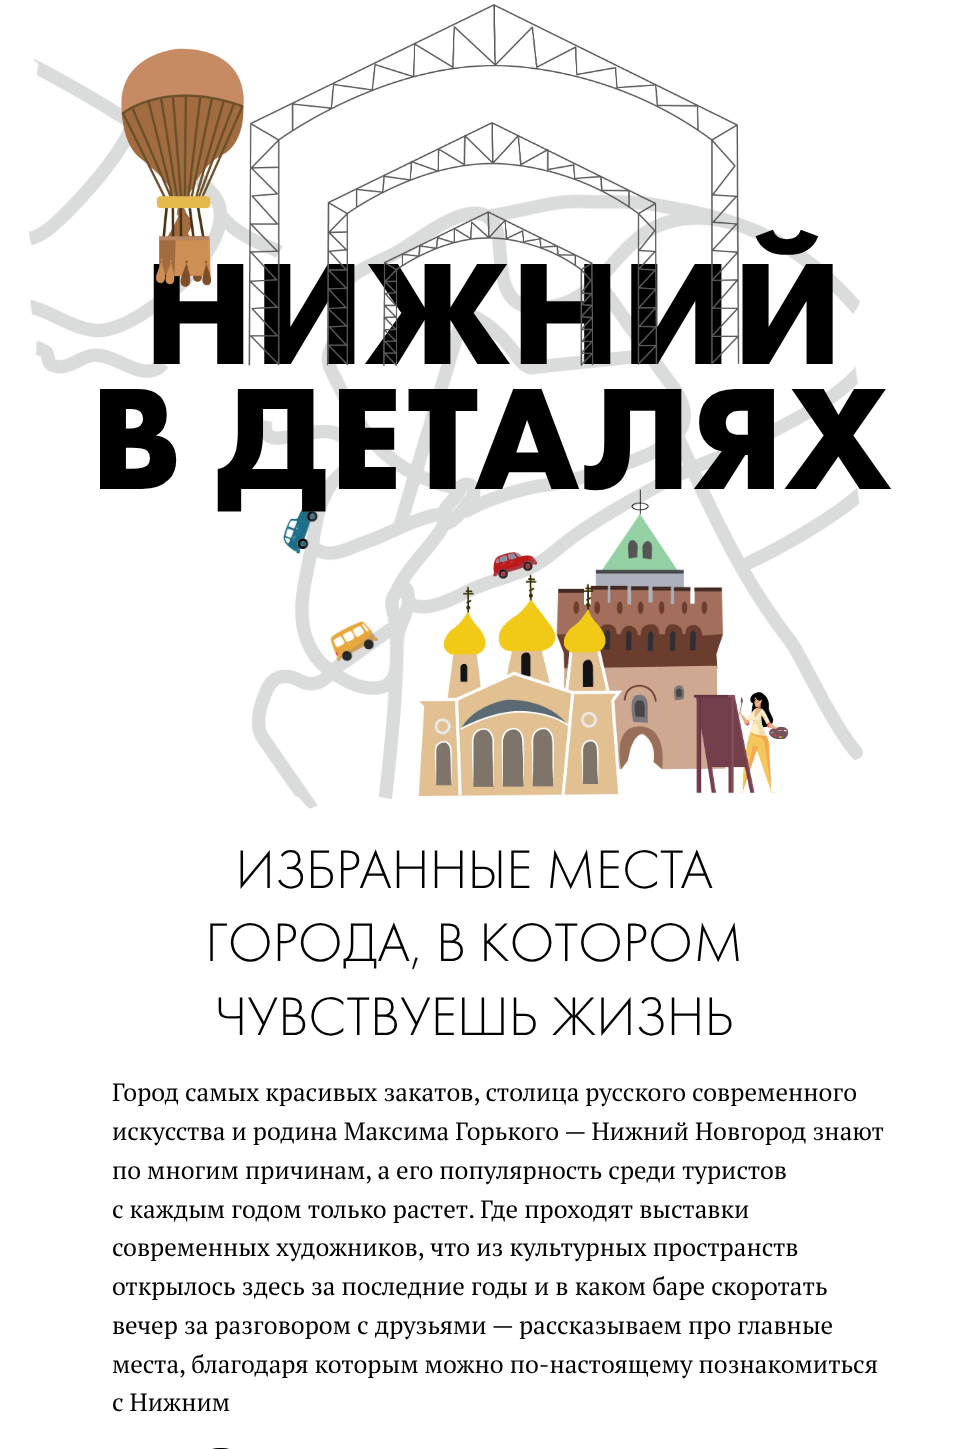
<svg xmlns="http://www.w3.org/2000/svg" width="978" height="1449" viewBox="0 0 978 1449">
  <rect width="100%" height="100%" fill="#fff"/>
  <image x="29" y="4" width="862" height="1445" href="images/1.png"/>
</svg>
